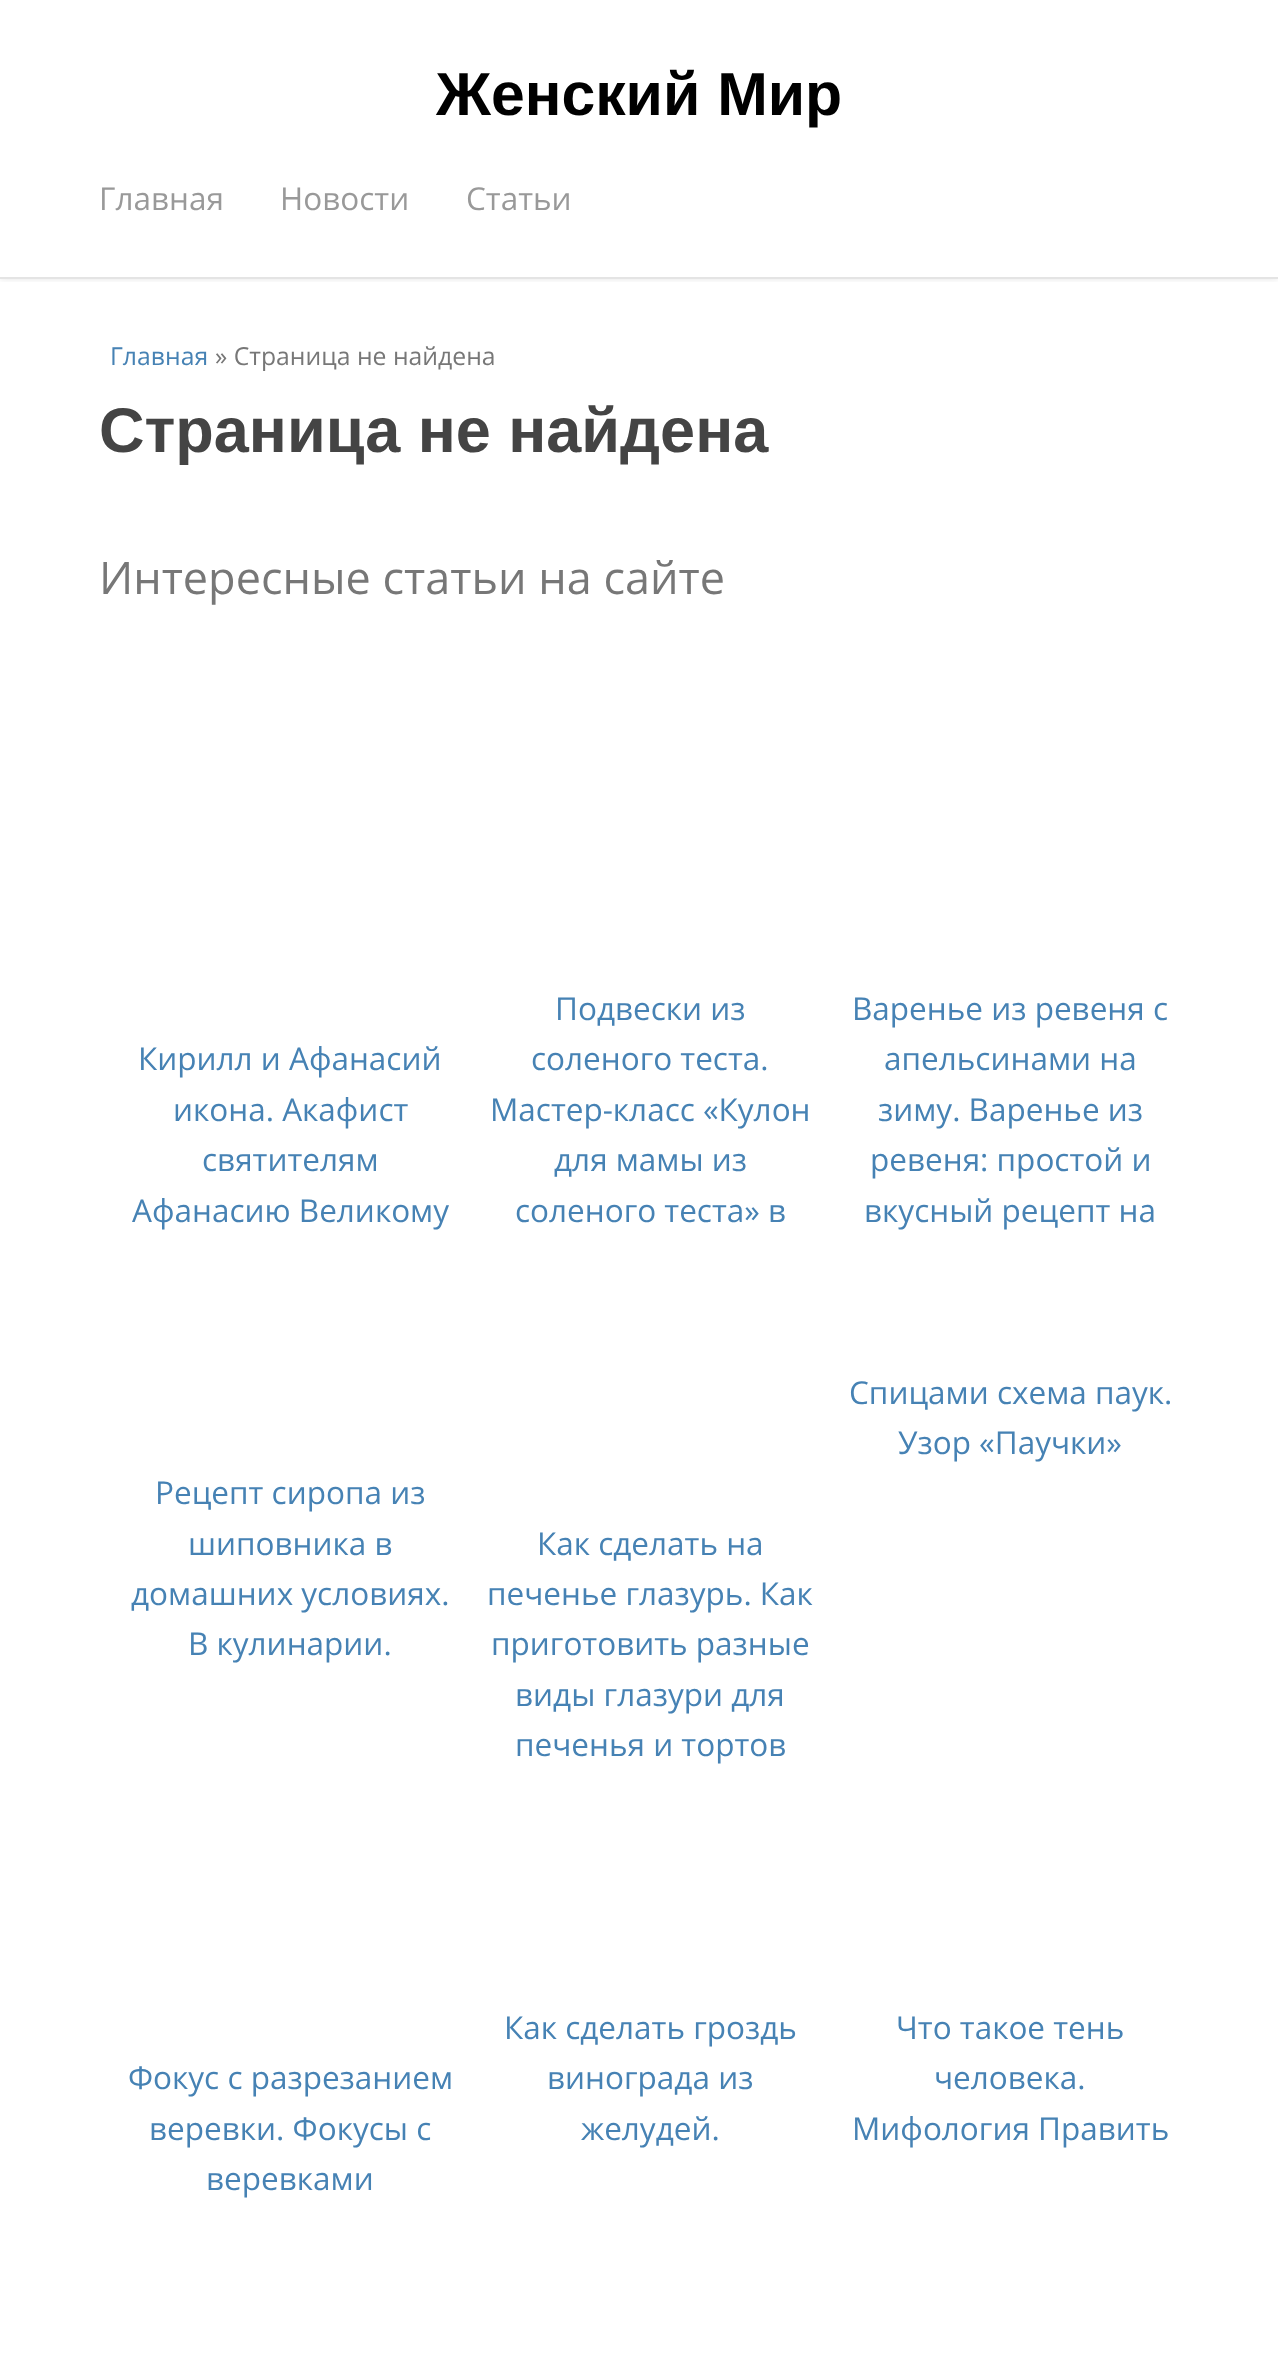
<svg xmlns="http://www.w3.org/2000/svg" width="1278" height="2358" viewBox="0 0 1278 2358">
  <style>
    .t1 { font: bold 60.75px Liberation Sans; fill: #000; }
    .t2 { font: 31.5px Open Sans; fill: #999; }
    .t3 { font: 24.75px Open Sans; fill: #4682b4; }
    .t4 { font: 24.75px Open Sans; fill: #777; }
    .t5 { font: bold 63px Liberation Sans; fill: #444; }
    .t6 { font: 45px Open Sans; fill: #777; }
    .t7 { font: 31.5px Open Sans; fill: #4682b4; }
  </style>
  <defs>
    <clipPath id="clip1"><rect x="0" y="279" width="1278" height="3"/></clipPath>
  </defs>
  <rect width="100%" height="100%" fill="#fff"/>
  <g clip-path="url(#clip1)">
    <rect x="0" y="0" width="1278" height="279" fill="#0000001a" filter="blur(3.5px)"/>
  </g>
  <rect x="0" y="277" width="1278" height="2" fill="#e4e4e4"/>
  <text x="436" y="115" class="t1">Женский Мир</text>
  <text x="99" y="210" class="t2">Главная</text>
  <text x="280" y="210" class="t2">Новости</text>
  <text x="466" y="210" class="t2">Статьи</text>
  <text x="110" y="365" class="t3">Главная</text>
  <text x="215" y="365" class="t4">» Страница не найдена</text>
  <text x="99" y="452" class="t5">Страница не найдена</text>
  <text x="99" y="594" class="t6">Интересные статьи на сайте</text>
  <text x="138" y="1070" class="t7">Кирилл и Афанасий</text>
  <text x="173" y="1121" class="t7">икона. Акафист</text>
  <text x="202" y="1171" class="t7">святителям</text>
  <text x="132" y="1222" class="t7">Афанасию Великому</text>
  <text x="555" y="1020" class="t7">Подвески из</text>
  <text x="531" y="1070" class="t7">соленого теста.</text>
  <text x="490" y="1121" class="t7">Мастер-класс «Кулон</text>
  <text x="554" y="1171" class="t7">для мамы из</text>
  <text x="515" y="1222" class="t7">соленого теста» в</text>
  <text x="852" y="1020" class="t7">Варенье из ревеня с</text>
  <text x="884" y="1070" class="t7">апельсинами на</text>
  <text x="878" y="1121" class="t7">зиму. Варенье из</text>
  <text x="870" y="1171" class="t7">ревеня: простой и</text>
  <text x="864" y="1222" class="t7">вкусный рецепт на</text>
  <text x="849" y="1404" class="t7">Спицами схема паук.</text>
  <text x="898" y="1454" class="t7">Узор «Паучки»</text>
  <text x="155" y="1504" class="t7">Рецепт сиропа из</text>
  <text x="188" y="1555" class="t7">шиповника в</text>
  <text x="131" y="1605" class="t7">домашних условиях.</text>
  <text x="188" y="1655" class="t7">В кулинарии.</text>
  <text x="537" y="1555" class="t7">Как сделать на</text>
  <text x="487" y="1605" class="t7">печенье глазурь. Как</text>
  <text x="491" y="1655" class="t7">приготовить разные</text>
  <text x="515" y="1706" class="t7">виды глазури для</text>
  <text x="515" y="1756" class="t7">печенья и тортов</text>
  <text x="128" y="2089" class="t7">Фокус с разрезанием</text>
  <text x="149" y="2140" class="t7">веревки. Фокусы с</text>
  <text x="206" y="2190" class="t7">веревками</text>
  <text x="504" y="2039" class="t7">Как сделать гроздь</text>
  <text x="547" y="2089" class="t7">винограда из</text>
  <text x="581" y="2140" class="t7">желудей.</text>
  <text x="896" y="2039" class="t7">Что такое тень</text>
  <text x="934" y="2089" class="t7">человека.</text>
  <text x="852" y="2140" class="t7">Мифология Править</text>
</svg>
